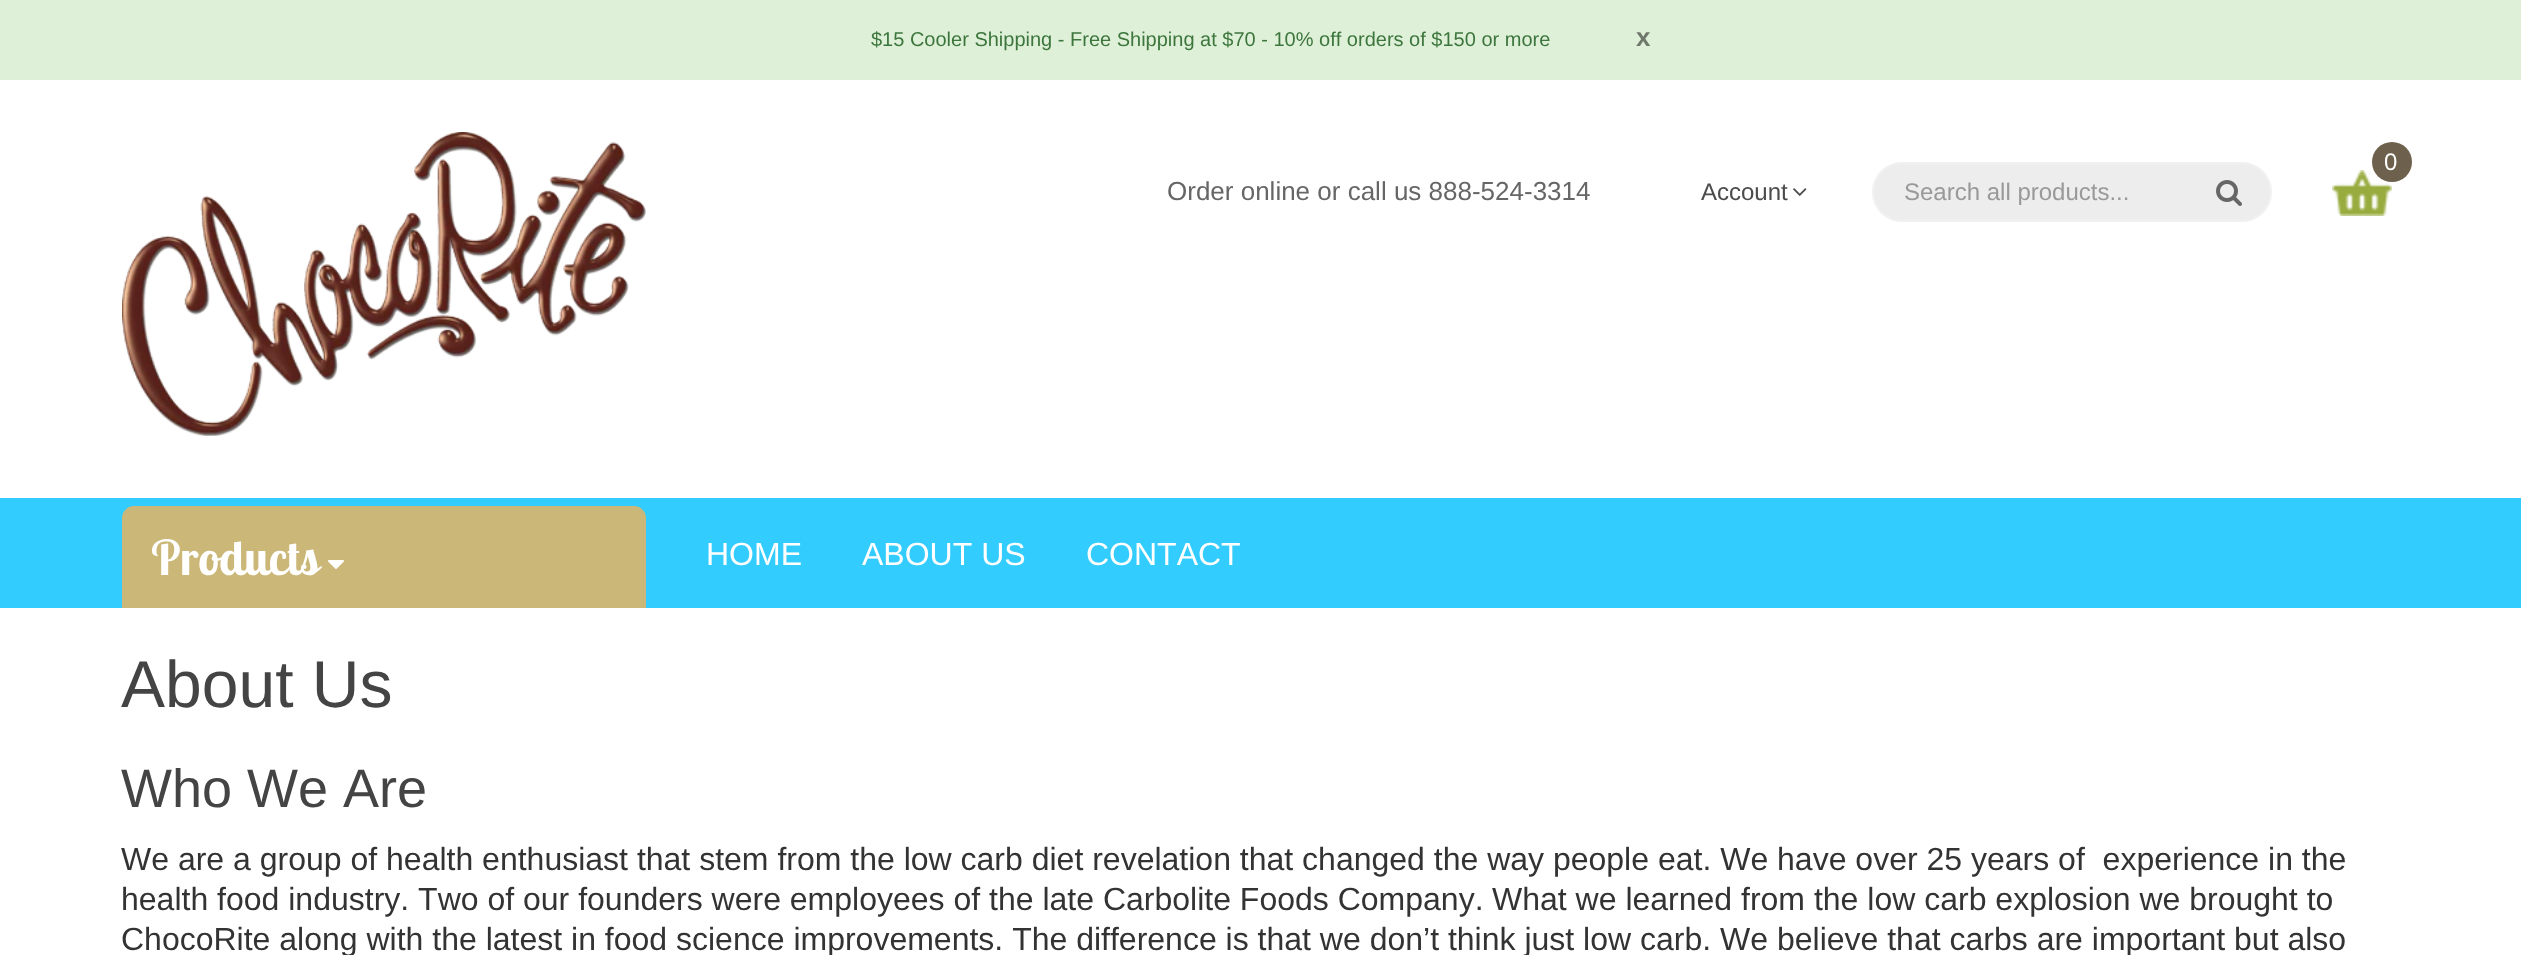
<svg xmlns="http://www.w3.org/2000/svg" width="2521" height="955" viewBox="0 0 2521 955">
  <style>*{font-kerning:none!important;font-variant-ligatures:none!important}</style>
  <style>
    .t1 { font: 20px Liberation Sans; fill: #3c763d; }
    .t2 { font: bold 26px Liberation Sans; fill: #70786c; }
    .t3 { font: 24px Liberation Sans; fill: #fff; }
    .t4 { font: 26px Liberation Sans; fill: #666; }
    .t5 { font: 24px Liberation Sans; fill: #4c4c4c; }
    .t6 { font: 24px Liberation Sans; fill: #999; }
    .t7 { font: bold 48px Lobster Two; fill: #fff; }
    .t8 { font: 32px Liberation Sans; fill: #fff; }
    .t9 { font: 66px Liberation Sans; fill: #444; }
    .t10 { font: 54px Liberation Sans; fill: #444; }
    .t11 { font: 32px Liberation Sans; fill: #333; }
  </style>
  <rect width="100%" height="100%" fill="#fff"/>
  <rect x="0" y="0" width="2521" height="80" fill="#dff0d8"/>
  <text x="871" y="46" class="t1">$15 Cooler Shipping - Free Shipping at $70 - 10% off orders of $150 or more</text>
  <text x="1636" y="46" class="t2">x</text>
  <image x="122" y="132" width="524" height="304" href="images/1.png"/>
  <image x="2332" y="170" width="60" height="46" href="images/2.png"/>
  <circle cx="2392" cy="162" r="20" fill="#6d604c"/>
  <text x="2384" y="170" class="t3">0</text>
  <text x="1167" y="200" class="t4">Order online or call us 888-524-3314</text>
  <text x="1701" y="200" class="t5">Account</text>
  <image x="1793" y="188" width="14" height="8" href="images/3.png"/>
  <rect x="1873" y="163" width="398" height="58" rx="29" fill="#ededed" stroke="#f1f1f1" stroke-width="2"/>
  <text x="1904" y="200" class="t6">Search all products...</text>
  <image x="2216" y="180" width="26" height="26" href="images/4.png"/>
  <rect x="0" y="498" width="2521" height="110" fill="#3cf"/>
  <path d="M134 506H634C640.5 506 646 511.5 646 518V608H122V518C122 511.5 127.5 506 134 506Z" fill="#cbb778"/>
  <text x="151" y="575" class="t7">Products</text>
  <image x="328" y="560" width="16" height="9" href="images/5.png"/>
  <text x="706" y="565" class="t8">HOME</text>
  <text x="862" y="565" class="t8">ABOUT US</text>
  <text x="1086" y="565" class="t8">CONTACT</text>
  <text x="121" y="707" class="t9">About Us</text>
  <text x="121" y="807" class="t10">Who We Are</text>
  <text x="121" y="870" class="t11" xml:space="preserve">We are a group of health enthusiast that stem from the low carb diet revelation that changed the way people eat. We have over 25 years of  experience in the</text>
  <text x="121" y="910" class="t11">health food industry. Two of our founders were employees of the late Carbolite Foods Company.</text>
  <text x="1492" y="910" class="t11">What we learned from the low carb explosion we brought to</text>
  <text x="121" y="950" class="t11">ChocoRite along with the latest in food science improvements. The difference is that we don’t think just low carb. We believe that carbs are important but also</text>
</svg>
